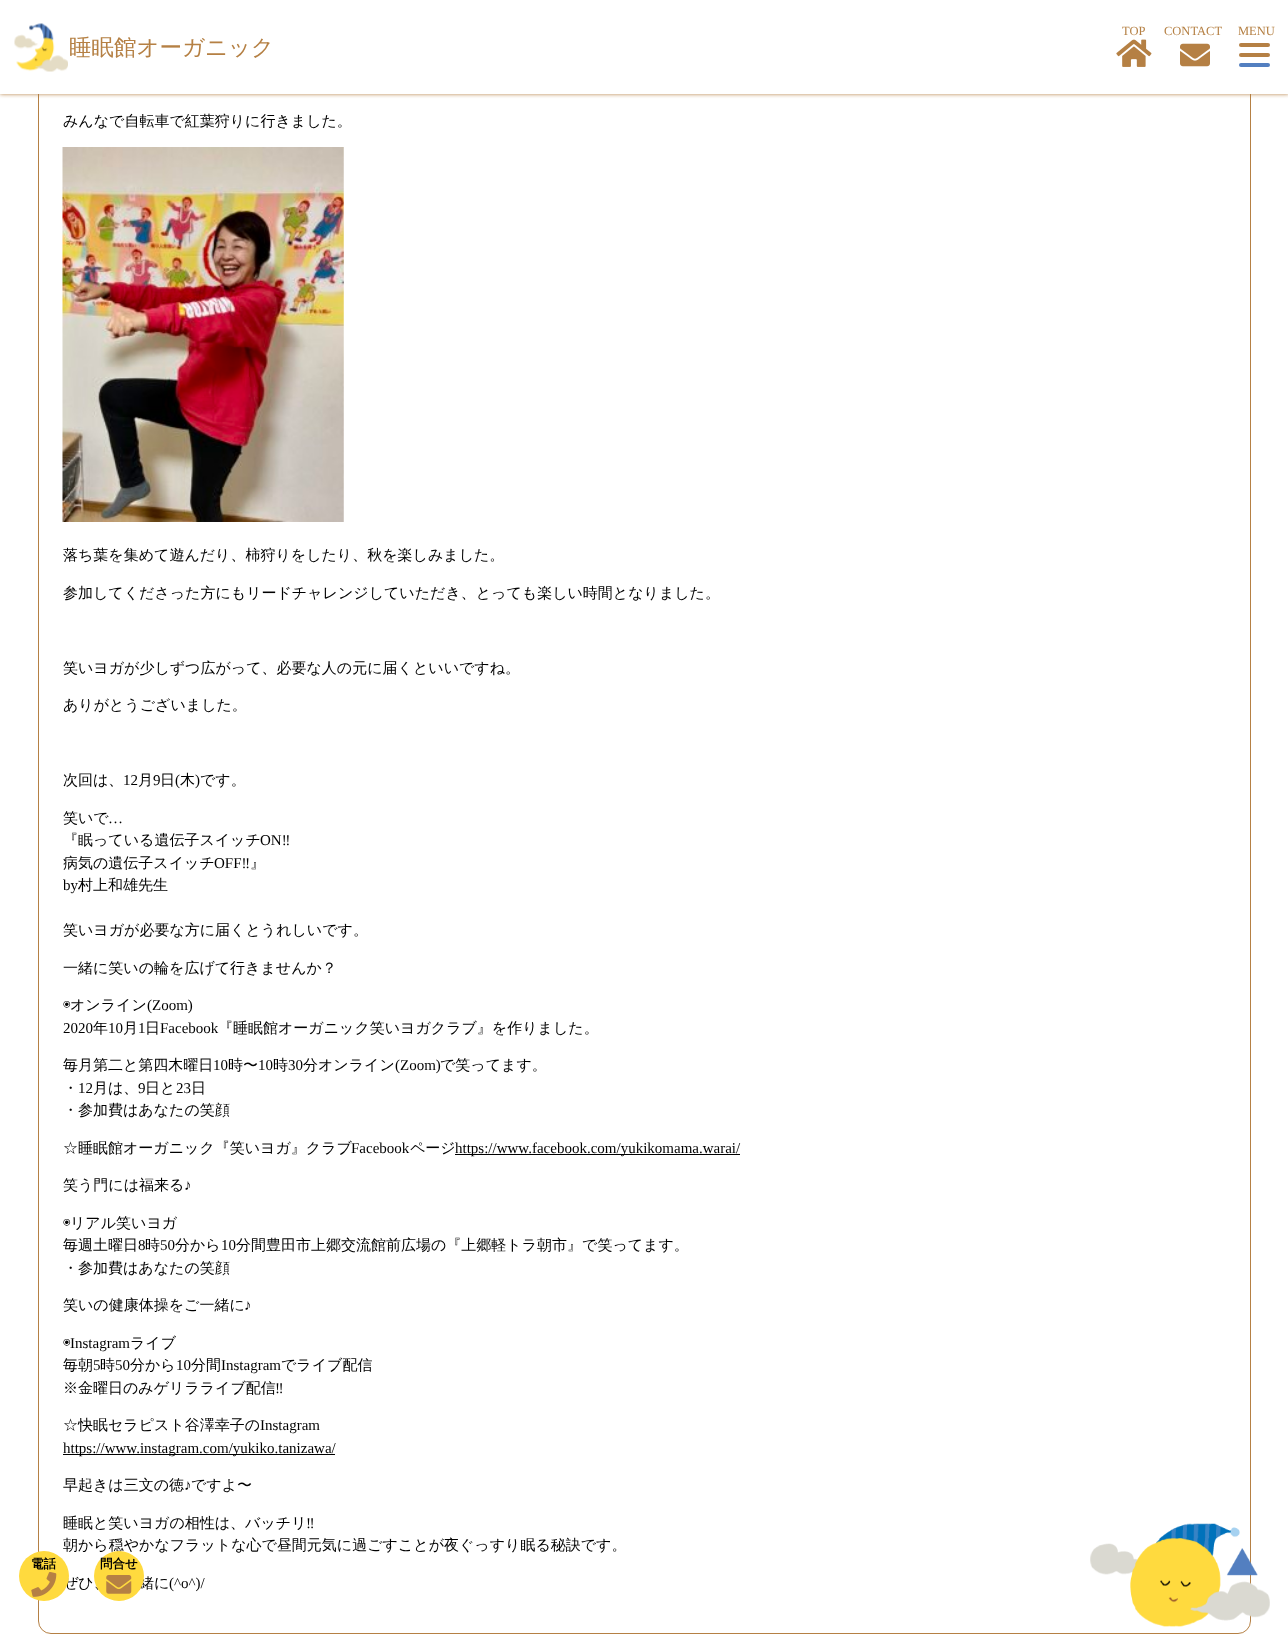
<svg xmlns="http://www.w3.org/2000/svg" width="1288" height="1645" viewBox="0 0 1288 1645">
  <style>
    .t1 { font: 12.5px Liberation Serif; fill: #b58044; }
    .t2 { font: 500 22.5px WenQuanYi Zen Hei; fill: #b58044; }
    .t3 { font: 500 15px WenQuanYi Zen Hei; fill: #000; }
    .t4 { font: 15px Liberation Serif; fill: #000; }
    .t5 { font: 15px IPAPGothic; fill: #000; }
    .t6 { font: bold 12.5px WenQuanYi Zen Hei; fill: #000; }
  </style>
  <rect width="100%" height="100%" fill="#fff"/>
  <rect x="38.5" y="-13.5" width="1212" height="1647" rx="12.5" fill="none" stroke="#b58044"/>
  <rect x="0" y="0" width="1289" height="94" fill="#b58044" filter="blur(2px)"/>
  <rect x="0" y="0" width="1288" height="94" fill="#fff"/>
  <text x="1122" y="35" class="t1">TOP</text>
  <image x="1116" y="39" width="36" height="28" href="images/1.png"/>
  <text x="1164" y="35" class="t1">CONTACT</text>
  <image x="1180" y="43" width="30" height="24" href="images/2.png"/>
  <text x="1238" y="35" class="t1">MENU</text>
  <rect x="1239" y="43" width="31" height="4" rx="2" fill="#b58044"/>
  <rect x="1239" y="53" width="31" height="4" rx="2" fill="#b58044"/>
  <rect x="1239" y="63" width="31" height="4" rx="2" fill="#537fc0"/>
  <image x="14" y="23" width="54" height="49" href="images/3.png"/>
  <text x="69" y="55" class="t2">睡眠館オーガニック</text>
  <text x="63" y="126" class="t3">みんなで自転車で紅葉狩りに行きました。</text>
  <image x="62" y="147" width="282" height="375" href="images/4.png"/>
  <text x="63" y="560" class="t3">落ち葉を集めて遊んだり、柿狩りをしたり、秋を楽しみました。</text>
  <text x="63" y="598" class="t3">参加してくださった方にもリードチャレンジしていただき、とっても楽しい時間となりました。</text>
  <text x="63" y="673" class="t3">笑いヨガが少しずつ広がって、必要な人の元に届くといいですね。</text>
  <text x="63" y="710" class="t3">ありがとうございました。</text>
  <text x="63" y="785" class="t3">次回は、</text>
  <text x="123" y="785" class="t4">12</text>
  <text x="138" y="785" class="t3">月</text>
  <text x="153" y="785" class="t4">9</text>
  <text x="160" y="785" class="t3">日</text>
  <text x="175" y="785" class="t4">(</text>
  <text x="180" y="785" class="t3">木</text>
  <text x="195" y="785" class="t4">)</text>
  <text x="200" y="785" class="t3">です。</text>
  <text x="63" y="823" class="t3">笑いで</text>
  <text x="108" y="823" class="t4">…</text>
  <text x="63" y="845" class="t3">『眠っている遺伝子スイッチ</text>
  <text x="260" y="845" class="t4">ON‼︎</text>
  <text x="63" y="868" class="t3">病気の遺伝子スイッチ</text>
  <text x="214" y="868" class="t4">OFF‼︎</text>
  <text x="250" y="868" class="t3">』</text>
  <text x="63" y="890" class="t4">by</text>
  <text x="78" y="890" class="t3">村上和雄先生</text>
  <text x="63" y="935" class="t3">笑いヨガが必要な方に届くとうれしいです。</text>
  <text x="63" y="973" class="t3">一緒に笑いの輪を広げて行きませんか？</text>
  <text x="63" y="1010" class="t5">◉</text>
  <text x="70" y="1010" class="t3">オンライン</text>
  <text x="147" y="1010" class="t4">(Zoom)</text>
  <text x="63" y="1033" class="t4">2020</text>
  <text x="93" y="1033" class="t3">年</text>
  <text x="108" y="1033" class="t4">10</text>
  <text x="123" y="1033" class="t3">月</text>
  <text x="138" y="1033" class="t4">1</text>
  <text x="145" y="1033" class="t3">日</text>
  <text x="160" y="1033" class="t4">Facebook</text>
  <text x="218" y="1033" class="t3">『睡眠館オーガニック笑いヨガクラブ』を作りました。</text>
  <text x="63" y="1070" class="t3">毎月第二と第四木曜日</text>
  <text x="213" y="1070" class="t4">10</text>
  <text x="228" y="1070" class="t3">時〜</text>
  <text x="258" y="1070" class="t4">10</text>
  <text x="273" y="1070" class="t3">時</text>
  <text x="288" y="1070" class="t4">30</text>
  <text x="303" y="1070" class="t3">分オンライン</text>
  <text x="395" y="1070" class="t4">(Zoom)</text>
  <text x="440" y="1070" class="t3">で笑ってます。</text>
  <text x="63" y="1093" class="t3">・</text>
  <text x="78" y="1093" class="t4">12</text>
  <text x="93" y="1093" class="t3">月は、</text>
  <text x="138" y="1093" class="t4">9</text>
  <text x="145" y="1093" class="t3">日と</text>
  <text x="176" y="1093" class="t4">23</text>
  <text x="191" y="1093" class="t3">日</text>
  <text x="63" y="1115" class="t3">・参加費はあなたの笑顔</text>
  <text x="63" y="1153" class="t3">☆睡眠館オーガニック『笑いヨガ』クラブ</text>
  <text x="351" y="1153" class="t4">Facebook</text>
  <text x="410" y="1153" class="t3">ページ</text>
  <rect x="455" y="1154" width="285" height="1" fill="#000"/>
  <text x="455" y="1153" class="t4">https://www.facebook.com/yukikomama.warai/</text>
  <text x="63" y="1190" class="t3">笑う門には福来る</text>
  <text x="184" y="1190" class="t4">♪</text>
  <text x="63" y="1228" class="t5">◉</text>
  <text x="70" y="1228" class="t3">リアル笑いヨガ</text>
  <text x="63" y="1250" class="t3">毎週土曜日</text>
  <text x="138" y="1250" class="t4">8</text>
  <text x="145" y="1250" class="t3">時</text>
  <text x="160" y="1250" class="t4">50</text>
  <text x="175" y="1250" class="t3">分から</text>
  <text x="221" y="1250" class="t4">10</text>
  <text x="236" y="1250" class="t3">分間豊田市上郷交流館前広場の『上郷軽トラ朝市』で笑ってます。</text>
  <text x="63" y="1273" class="t3">・参加費はあなたの笑顔</text>
  <text x="63" y="1310" class="t3">笑いの健康体操をご一緒に</text>
  <text x="244" y="1310" class="t4">♪</text>
  <text x="63" y="1348" class="t5">◉</text>
  <text x="70" y="1348" class="t4">Instagram</text>
  <text x="130" y="1348" class="t3">ライブ</text>
  <text x="63" y="1370" class="t3">毎朝</text>
  <text x="93" y="1370" class="t4">5</text>
  <text x="100" y="1370" class="t3">時</text>
  <text x="115" y="1370" class="t4">50</text>
  <text x="130" y="1370" class="t3">分から</text>
  <text x="176" y="1370" class="t4">10</text>
  <text x="191" y="1370" class="t3">分間</text>
  <text x="221" y="1370" class="t4">Instagram</text>
  <text x="281" y="1370" class="t3">でライブ配信</text>
  <text x="63" y="1393" class="t3">※金曜日のみゲリラライブ配信</text>
  <text x="275" y="1393" class="t4">‼︎</text>
  <text x="63" y="1430" class="t3">☆快眠セラピスト谷澤幸子の</text>
  <text x="260" y="1430" class="t4">Instagram</text>
  <rect x="63" y="1454" width="272" height="1" fill="#000"/>
  <text x="63" y="1453" class="t4">https://www.instagram.com/yukiko.tanizawa/</text>
  <text x="63" y="1490" class="t3">早起きは三文の徳</text>
  <text x="184" y="1490" class="t4">♪</text>
  <text x="191" y="1490" class="t3">ですよ〜</text>
  <text x="63" y="1528" class="t3">睡眠と笑いヨガの相性は、バッチリ</text>
  <text x="306" y="1528" class="t4">‼︎</text>
  <text x="63" y="1550" class="t3">朝から穏やかなフラットな心で昼間元気に過ごすことが夜ぐっすり眠る秘訣です。</text>
  <text x="63" y="1588" class="t3">ぜひ、</text>
  <text x="139" y="1588" class="t3">緒に</text>
  <text x="169" y="1588" class="t4">(^o^)/</text>
  <circle cx="44" cy="1576" r="25" fill="#ffda3e"/>
  <text x="31" y="1568" class="t6">電話</text>
  <image x="31" y="1572" width="26" height="25" href="images/5.png"/>
  <circle cx="119" cy="1576" r="25" fill="#ffda3e"/>
  <text x="100" y="1568" class="t6">問合せ</text>
  <image x="106" y="1575" width="26" height="19" href="images/6.png"/>
  <image x="1090" y="1523" width="180" height="104" href="images/7.png"/>
</svg>
